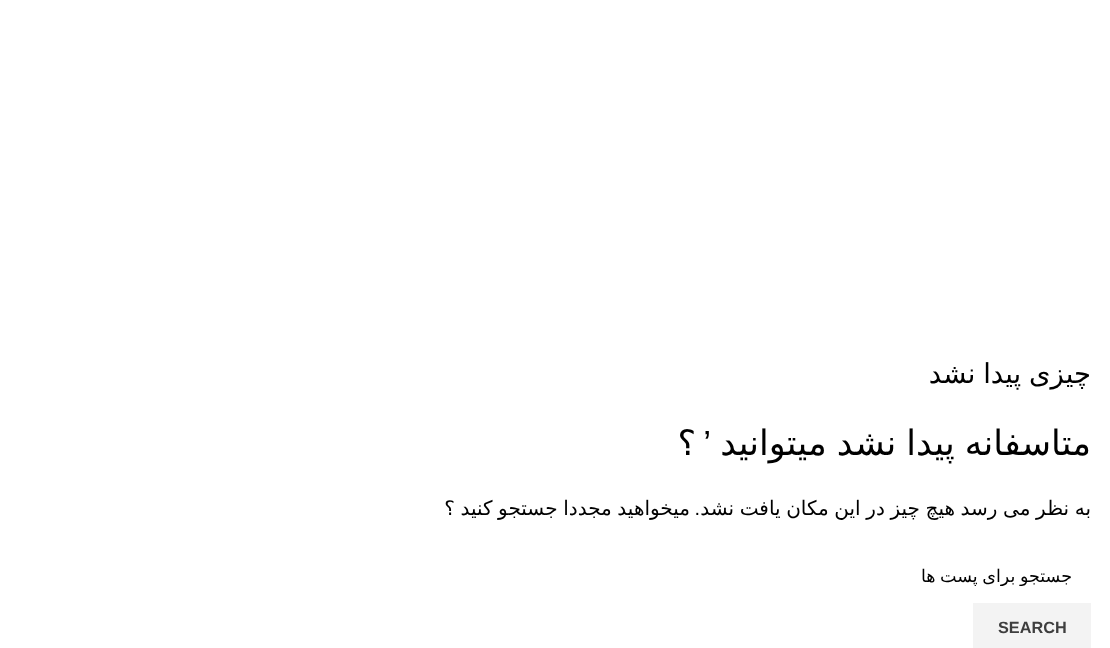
<svg xmlns="http://www.w3.org/2000/svg" width="1110" height="648" viewBox="0 0 1110 648">
  <style>
    .t1 { font: 27.5px DejaVu Sans; direction: rtl; fill: #000; }
    .t2 { font: 35px DejaVu Sans; direction: rtl; fill: #000; }
    .t3 { font: 35px Liberation Sans; direction: rtl; fill: #000; }
    .t4 { font: 20px DejaVu Sans; direction: rtl; fill: #000; }
    .t5 { font: 20px Liberation Sans; direction: rtl; fill: #000; }
    .t6 { font: 17.5px DejaVu Sans; direction: rtl; fill: #000; }
    .t7 { font: bold 16.25px Liberation Sans; fill: #3e3e3e; }
  </style>
  <defs>
    <clipPath id="clip1"><rect x="38" y="566" width="1035" height="20"/></clipPath>
  </defs>
  <rect width="100%" height="100%" fill="#fff"/>
  <text x="1091" y="383" word-spacing="-1" class="t1">چیزی پیدا نشد</text>
  <text x="1091" y="455" word-spacing="-1" class="t2">متاسفانه پیدا نشد میتوانید</text>
  <text x="711" y="455" class="t3">’</text>
  <text x="696" y="455" class="t2">؟</text>
  <text x="1091" y="515" word-spacing="-0.75" class="t4">به نظر می رسد هیچ چیز در این مکان یافت نشد</text>
  <text x="700" y="515" class="t5">.</text>
  <text x="690" y="515" word-spacing="-0.75" class="t4">میخواهید مجددا جستجو کنید ؟</text>
  <g clip-path="url(#clip1)">
    <text x="1072" y="582" word-spacing="-1" class="t6">جستجو برای پست ها</text>
  </g>
  <rect x="973" y="603" width="118" height="45" fill="#f3f3f3"/>
  <text x="998" y="633" class="t7">SEARCH</text>
</svg>
